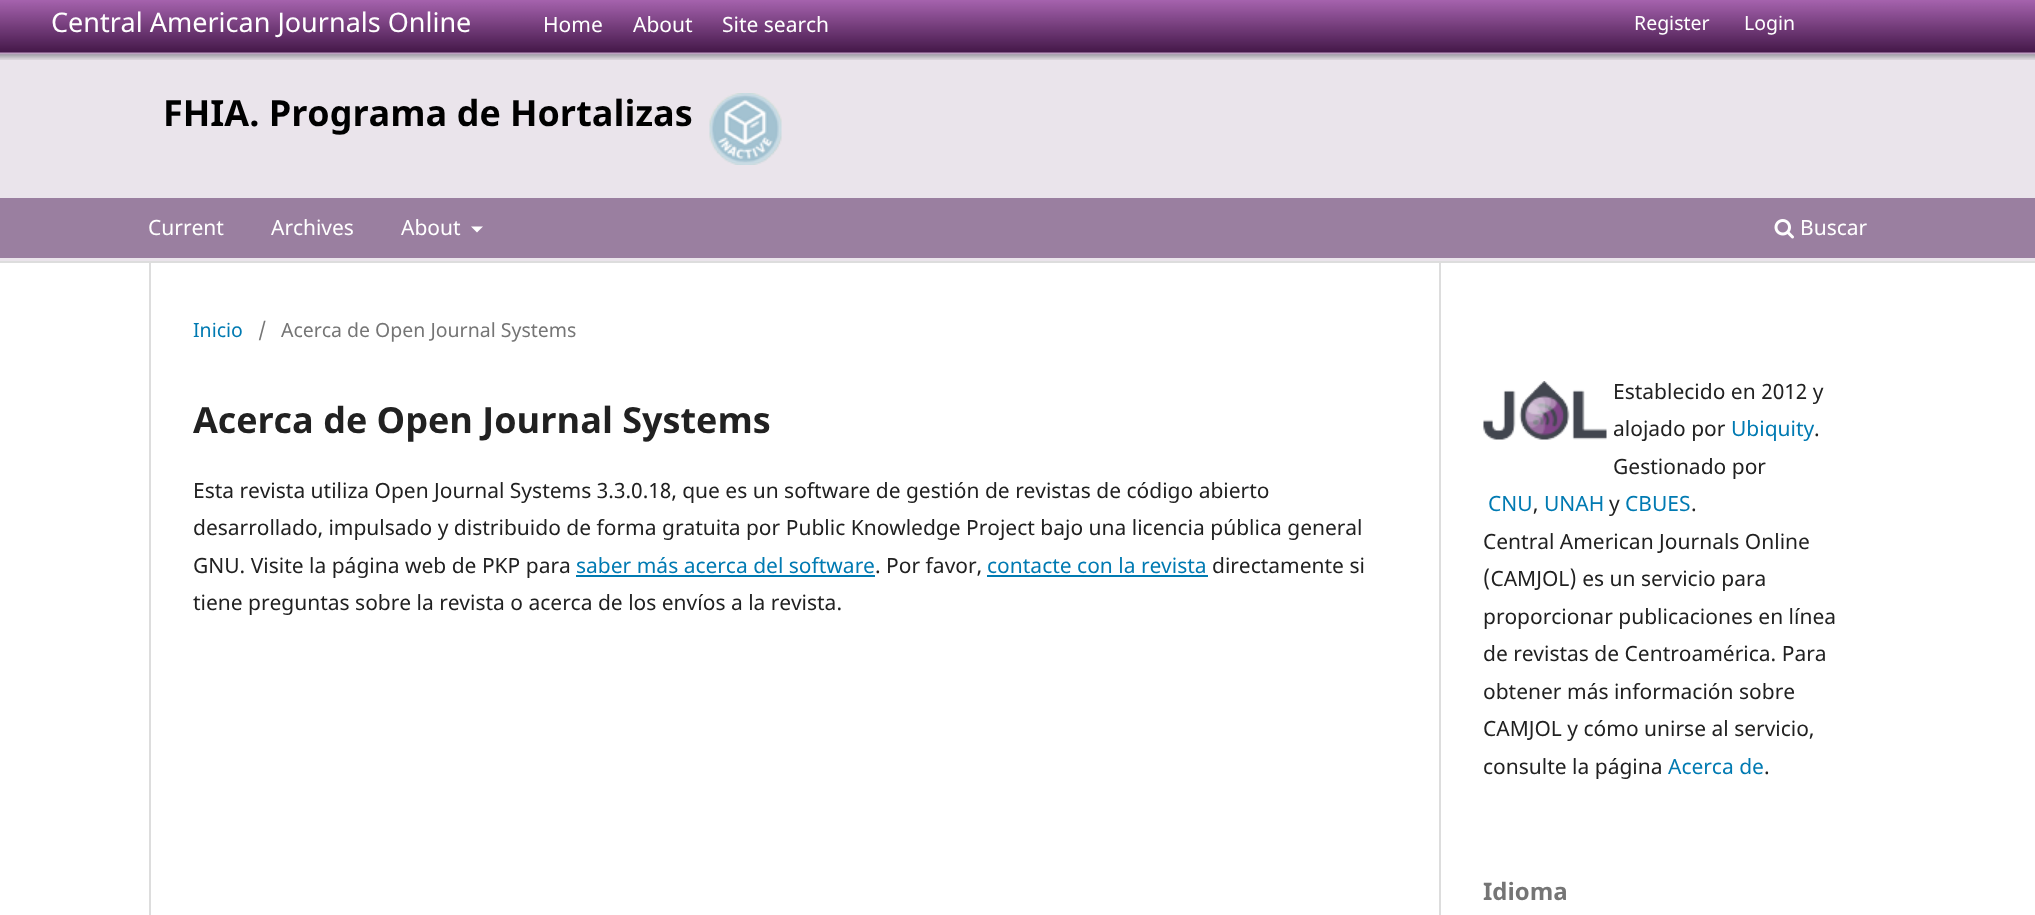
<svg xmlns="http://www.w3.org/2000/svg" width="2035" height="915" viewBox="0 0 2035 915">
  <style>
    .t1 { font: 27px Noto Sans; fill: #fff; }
    .t2 { font: 21px Noto Sans; fill: #fff; }
    .t3 { font: 19.5px Noto Sans; fill: #fff; }
    .t4 { font: bold 36px Noto Sans; fill: #000; }
    .t5 { font: 19.5px Noto Sans; fill: #007ab2; }
    .t6 { font: 19.5px Noto Sans; fill: #757575; }
    .t7 { font: bold 36px Noto Sans; fill: #212121; }
    .t8 { font: 21px Noto Sans; fill: #212121; }
    .t9 { font: 21px Noto Sans; fill: #007ab2; }
    .t10 { font: bold 24px Noto Sans; fill: #757575; }
  </style>
  <rect width="100%" height="100%" fill="#fff"/>
  <rect x="0" y="60" width="2035" height="201" fill="#eae4eb"/>
  <rect x="0" y="261" width="2035" height="2" fill="#ddd"/>
  <image x="0" y="0" width="2035" height="60" href="images/1.png"/>
  <text x="51" y="32" class="t1">Central American Journals Online</text>
  <text x="543" y="32" class="t2">Home</text>
  <text x="633" y="32" class="t2">About</text>
  <text x="722" y="32" class="t2">Site search</text>
  <text x="1634" y="30" class="t3">Register</text>
  <text x="1744" y="30" class="t3">Login</text>
  <rect x="0" y="198" width="2035" height="60" fill="#9a7fa0"/>
  <text x="148" y="235" class="t2">Current</text>
  <text x="271" y="235" class="t2">Archives</text>
  <text x="401" y="235" class="t2">About</text>
  <path d="M471 226.5H483L477 232.5Z" fill="#fff"/>
  <image x="1774" y="219" width="20" height="20" href="images/2.png"/>
  <text x="1800" y="235" class="t2">Buscar</text>
  <text x="163" y="126" class="t4">FHIA. Programa de Hortalizas</text>
  <image x="709" y="93" width="73" height="72" href="images/3.png"/>
  <rect x="149" y="263" width="2" height="652" fill="#ddd"/>
  <text x="193" y="337" class="t5">Inicio</text>
  <text x="258" y="337" class="t6">/</text>
  <text x="281" y="337" class="t6">Acerca de Open Journal Systems</text>
  <text x="193" y="433" class="t7">Acerca de Open Journal Systems</text>
  <text x="193" y="498" class="t8">Esta revista utiliza Open Journal Systems 3.3.0.18, que es un software de gestión de revistas de código abierto</text>
  <text x="193" y="535" class="t8">desarrollado, impulsado y distribuido de forma gratuita por Public Knowledge Project bajo una licencia pública general</text>
  <text x="193" y="573" class="t8">GNU. Visite la página web de PKP para</text>
  <text x="576" y="573" class="t9">saber más acerca del software</text>
  <rect x="576" y="575" width="299" height="2" fill="#007ab2"/>
  <text x="875" y="573" class="t8">. Por favor,</text>
  <text x="987" y="573" class="t9">contacte con la revista</text>
  <rect x="987" y="575" width="221" height="2" fill="#007ab2"/>
  <text x="1212" y="573" class="t8">directamente si</text>
  <text x="193" y="610" class="t8">tiene preguntas sobre la revista o acerca de los envíos a la revista.</text>
  <rect x="1439" y="263" width="2" height="652" fill="#ddd"/>
  <image x="1483" y="381" width="124" height="59" href="images/4.png"/>
  <text x="1613" y="399" class="t8">Establecido en 2012 y</text>
  <text x="1613" y="436" class="t8">alojado por</text>
  <text x="1731" y="436" class="t9">Ubiquity</text>
  <text x="1814" y="436" class="t8">.</text>
  <text x="1613" y="474" class="t8">Gestionado por</text>
  <text x="1488" y="511" class="t9">CNU</text>
  <text x="1533" y="511" class="t8">,</text>
  <text x="1544" y="511" class="t9">UNAH</text>
  <text x="1609" y="511" class="t8">y</text>
  <text x="1625" y="511" class="t9">CBUES</text>
  <text x="1691" y="511" class="t8">.</text>
  <text x="1483" y="549" class="t8">Central American Journals Online</text>
  <text x="1483" y="586" class="t8">(CAMJOL) es un servicio para</text>
  <text x="1483" y="624" class="t8">proporcionar publicaciones en línea</text>
  <text x="1483" y="661" class="t8">de revistas de Centroamérica. Para</text>
  <text x="1483" y="699" class="t8">obtener más información sobre</text>
  <text x="1483" y="736" class="t8">CAMJOL y cómo unirse al servicio,</text>
  <text x="1483" y="774" class="t8">consulte la página</text>
  <text x="1668" y="774" class="t9">Acerca de</text>
  <text x="1764" y="774" class="t8">.</text>
  <text x="1483" y="900" class="t10">Idioma</text>
</svg>
